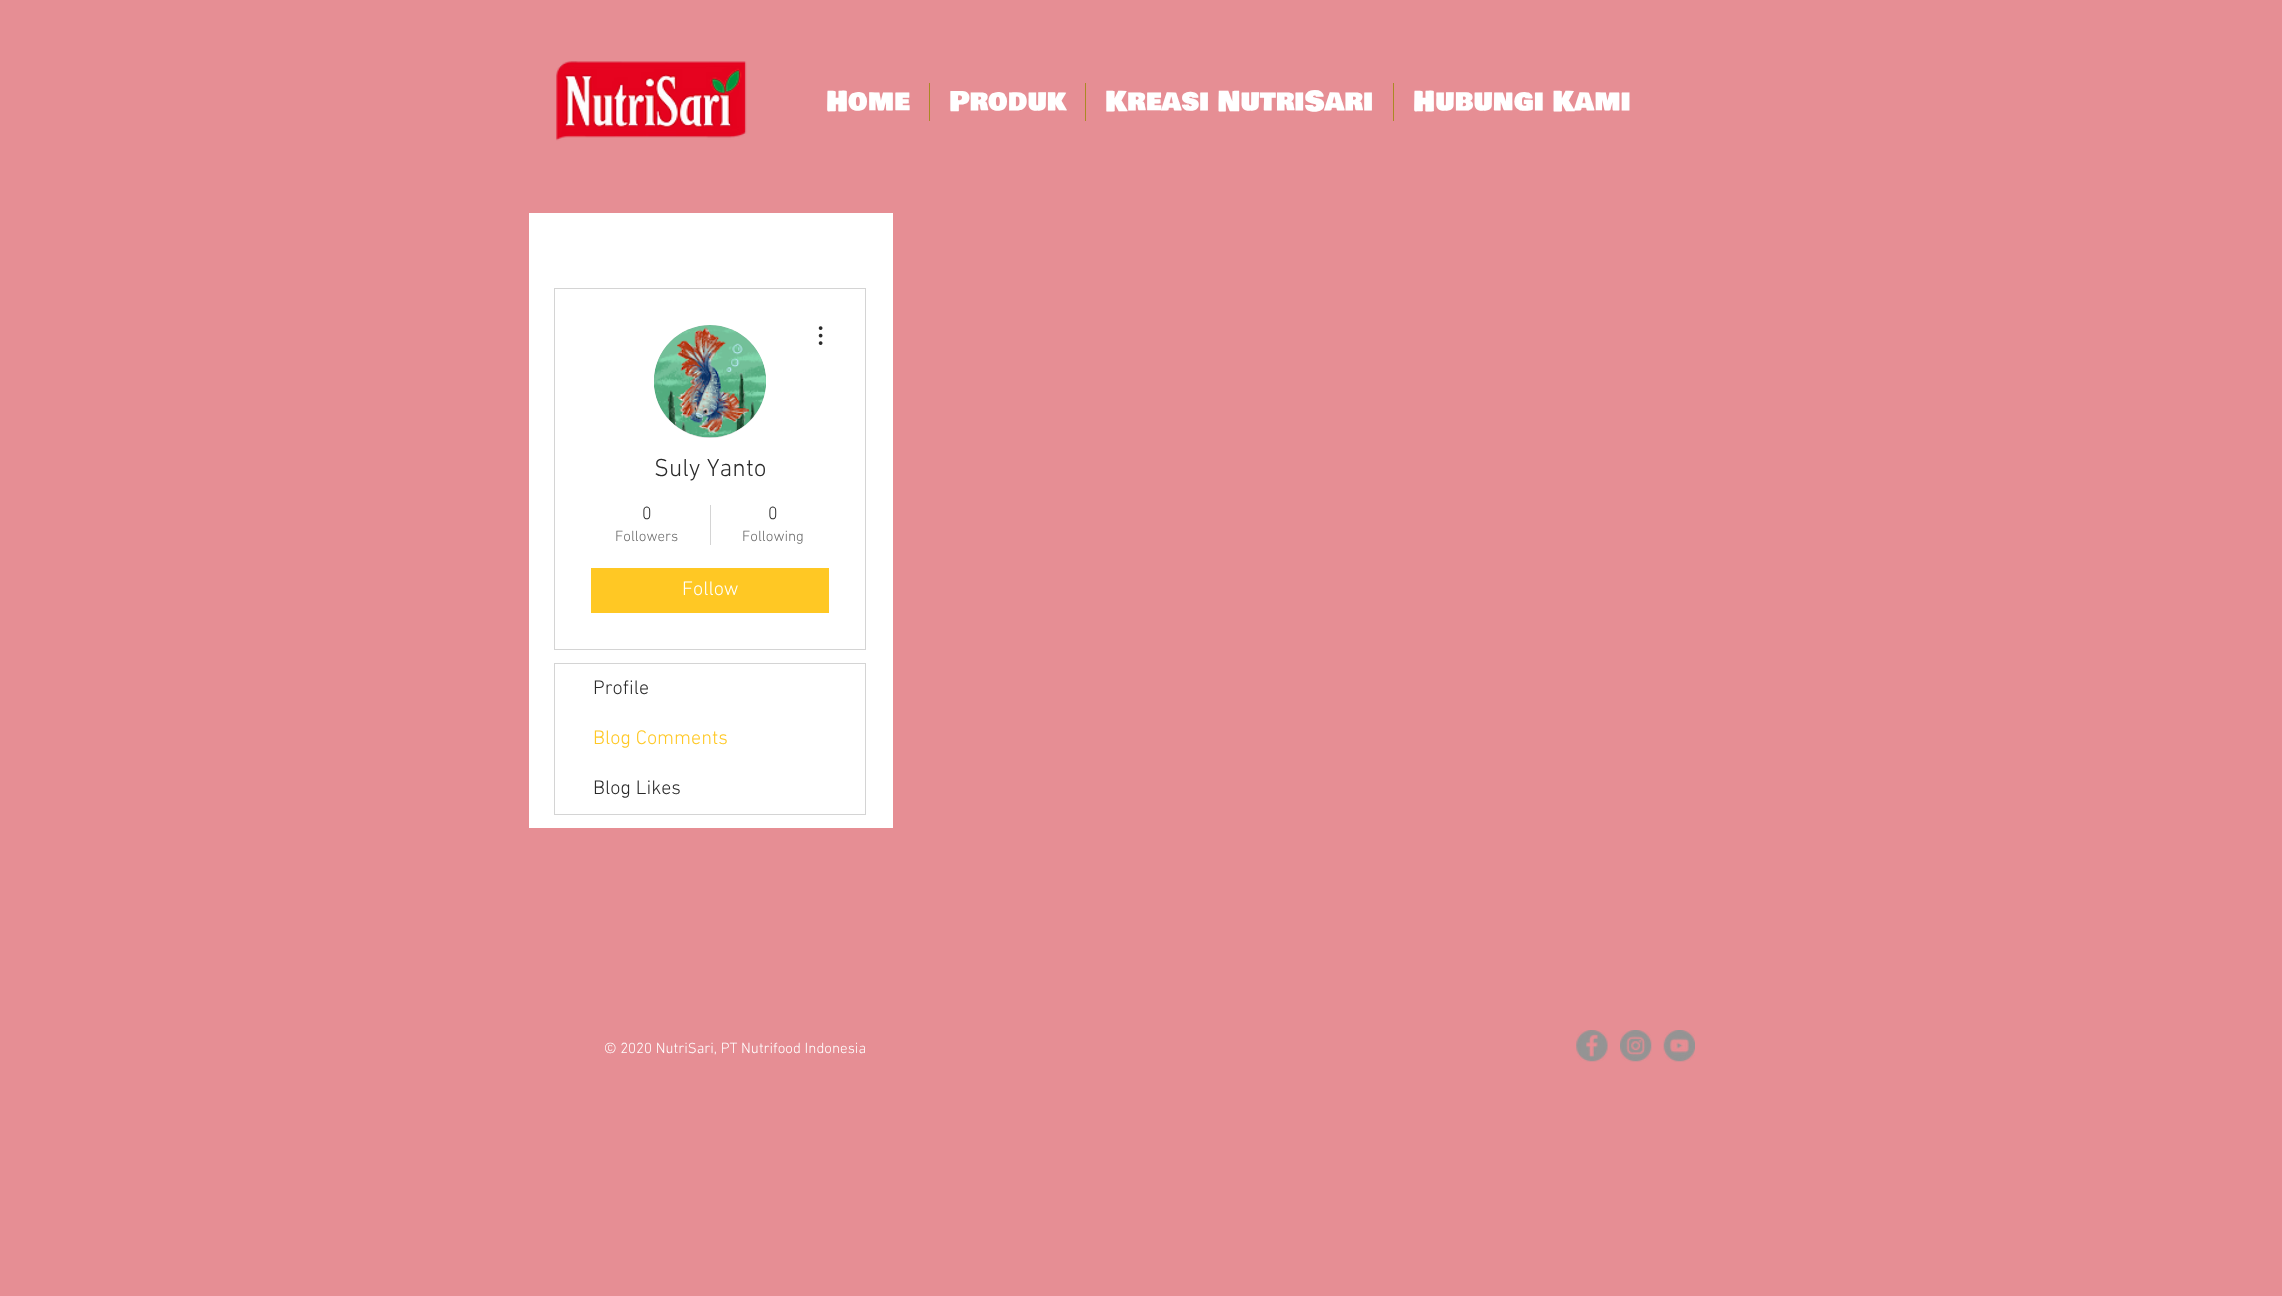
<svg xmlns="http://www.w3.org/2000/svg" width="2282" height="1296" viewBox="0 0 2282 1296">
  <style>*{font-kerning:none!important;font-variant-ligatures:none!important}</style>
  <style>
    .t1 { font: 27.5px Bowlby One SC; fill: #fff; }
    .t2 { font: 300 25px 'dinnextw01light'; fill: #2a2a2a; }
    .t3 { font: 300 18px 'dinnextw01light'; fill: #2a2a2a; }
    .t4 { font: 300 15px 'dinnextw01light'; fill: #6a6a6a; }
    .t5 { font: 300 20px 'dinnextw01light'; fill: #fff; }
    .t6 { font: 300 20px 'dinnextw01light'; fill: #2a2a2a; }
    .t7 { font: 300 20px 'dinnextw01light'; fill: #ffc824; }
    .t8 { font: 300 15px 'dinnextw01light'; fill: #fff; }
  </style>
  <rect width="100%" height="100%" fill="#e68e94"/>
  <image x="556" y="61" width="191" height="80" href="images/1.png"/>
  <text x="826" y="111" class="t1">Home</text>
  <rect x="929" y="83" width="1" height="38" fill="#aa8924"/>
  <text x="949" y="111" class="t1">Produk</text>
  <rect x="1085" y="83" width="1" height="38" fill="#aa8924"/>
  <text x="1105" y="111" class="t1">Kreasi NutriSari</text>
  <rect x="1393" y="83" width="1" height="38" fill="#aa8924"/>
  <text x="1413" y="111" class="t1">Hubungi Kami</text>
  <rect x="529" y="213" width="364" height="615" fill="#fff"/>
  <rect x="554.5" y="288.5" width="311" height="361" fill="none" stroke="#d4d4d4"/>
  <rect x="654" y="325" width="112" height="113" rx="56" fill="#d8d8d8"/>
  <image x="654" y="325" width="112" height="113" href="images/2.png"/>
  <image x="818" y="326" width="5" height="19" href="images/3.png"/>
  <text x="654" y="476" class="t2">Suly Yanto</text>
  <text x="642" y="519" class="t3">0</text>
  <text x="615" y="541" class="t4">Followers</text>
  <rect x="710" y="505" width="1" height="40" fill="#d4d4d4"/>
  <text x="768" y="519" class="t3">0</text>
  <text x="742" y="541" class="t4">Following</text>
  <rect x="591" y="568" width="238" height="45" fill="#ffc824"/>
  <text x="682" y="595" class="t5">Follow</text>
  <rect x="554.5" y="663.5" width="311" height="151" fill="none" stroke="#d4d4d4"/>
  <text x="593" y="694" class="t6">Profile</text>
  <text x="593" y="744" class="t7">Blog Comments</text>
  <text x="593" y="794" class="t6">Blog Likes</text>
  <text x="604" y="1053" class="t8">© 2020 NutriSari, PT Nutrifood Indonesia</text>
  <image x="1576" y="1030" width="32" height="32" href="images/4.png"/>
  <image x="1620" y="1030" width="32" height="32" href="images/5.png"/>
  <image x="1663" y="1030" width="32" height="32" href="images/6.png"/>
</svg>
